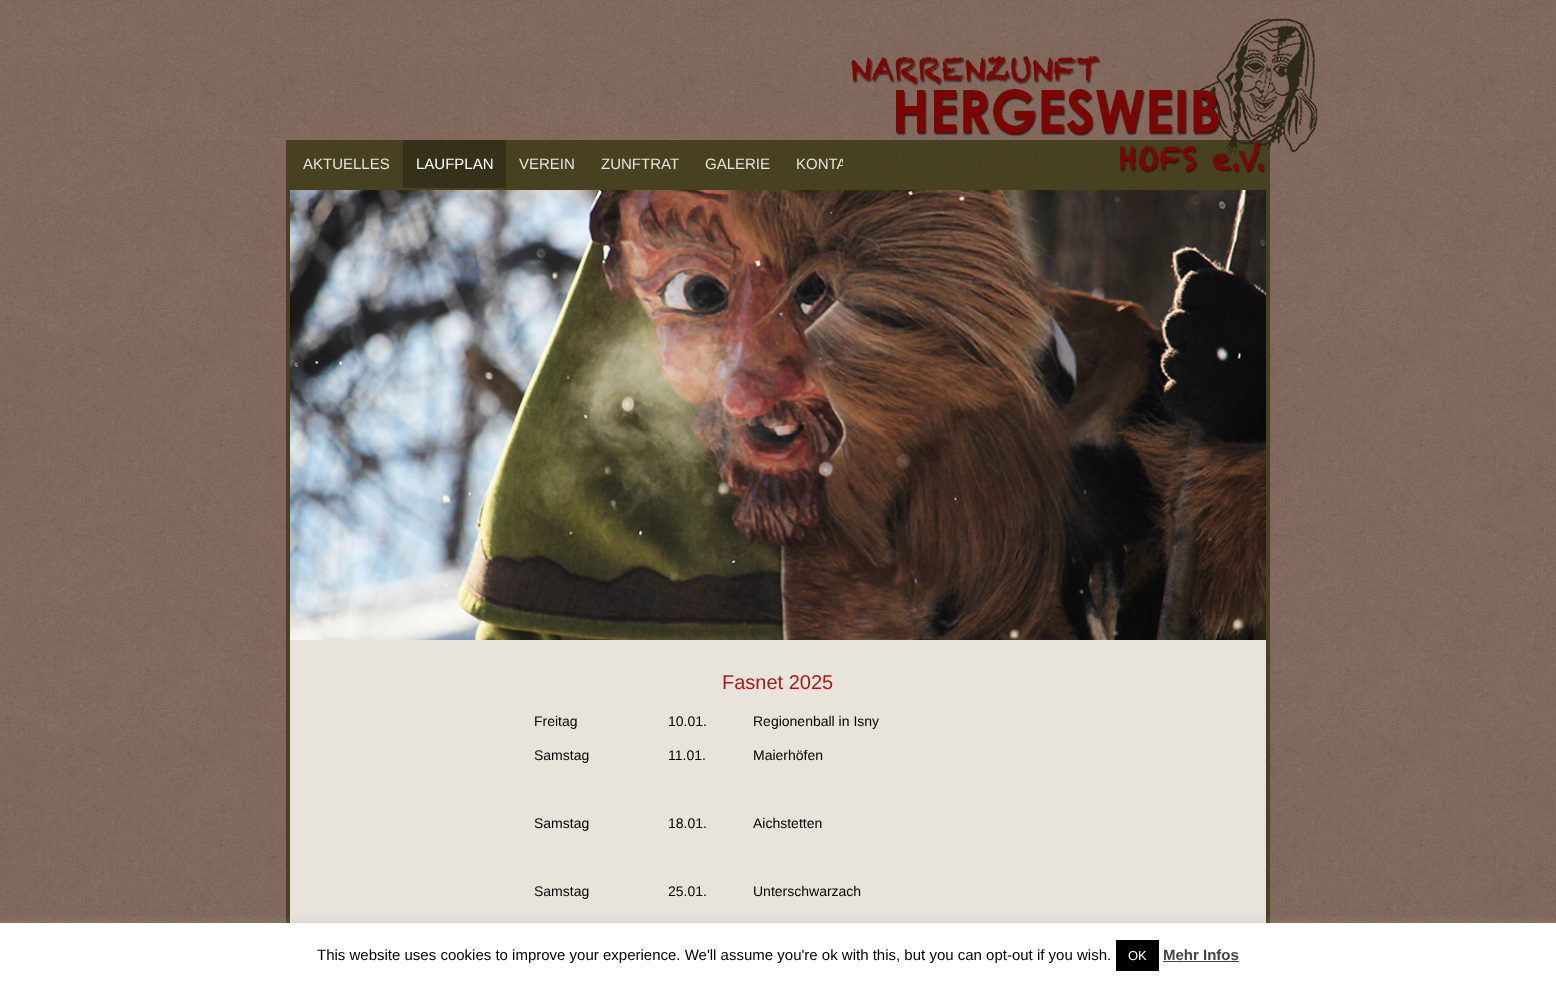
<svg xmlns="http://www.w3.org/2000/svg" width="1556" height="983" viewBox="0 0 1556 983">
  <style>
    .t1 { font: 15px Liberation Sans; fill: #e8e4dc; }
    .t2 { font: 15px Liberation Sans; fill: #fff; }
    .t3 { font: 20px Liberation Sans; fill: #a71c19; }
    .t4 { font: 14px Liberation Sans; fill: #000; }
    .t5 { font: 15px Liberation Sans; fill: #000; }
    .t6 { font: 13px Liberation Sans; fill: #fff; }
    .t7 { font: bold 15px Liberation Sans; fill: #444; }
  </style>
  <rect width="100%" height="100%" fill="#fff"/>
  <image x="0" y="0" width="1556" height="140" href="images/1.png"/>
  <image x="0" y="140" width="1556" height="783" href="images/2.png"/>
  <rect x="286" y="140" width="984" height="50" fill="#474121"/>
  <text x="303" y="169" class="t1">AKTUELLES</text>
  <rect x="403" y="140" width="103" height="48" fill="#353119"/>
  <text x="416" y="169" class="t2">LAUFPLAN</text>
  <text x="519" y="169" class="t1">VEREIN</text>
  <text x="601" y="169" class="t1">ZUNFTRAT</text>
  <text x="705" y="169" class="t1">GALERIE</text>
  <text x="796" y="169" class="t1">KONTA</text>
  <image x="843" y="16" width="478" height="172" href="images/3.png"/>
  <rect x="1266" y="190" width="4" height="733" fill="#474121"/>
  <rect x="286" y="190" width="4" height="733" fill="#474121"/>
  <image x="290" y="190" width="976" height="450" href="images/4.png"/>
  <rect x="290" y="640" width="976" height="283" fill="#e8e4dc"/>
  <text x="722" y="689" class="t3">Fasnet 2025</text>
  <text x="534" y="726" class="t4">Freitag</text>
  <text x="668" y="726" class="t4">10.01.</text>
  <text x="753" y="726" class="t4">Regionenball in Isny</text>
  <text x="534" y="760" class="t4">Samstag</text>
  <text x="668" y="760" class="t4">11.01.</text>
  <text x="753" y="760" class="t4">Maierhöfen</text>
  <text x="534" y="828" class="t4">Samstag</text>
  <text x="668" y="828" class="t4">18.01.</text>
  <text x="753" y="828" class="t4">Aichstetten</text>
  <text x="534" y="896" class="t4">Samstag</text>
  <text x="668" y="896" class="t4">25.01.</text>
  <text x="753" y="896" class="t4">Unterschwarzach</text>
  <rect x="0" y="922" width="1556" height="60" fill="#acabab4d" filter="blur(5px)"/>
  <rect x="0" y="923" width="1556" height="60" fill="#fff"/>
  <text x="317" y="960" class="t5">This website uses cookies to improve your experience. We'll assume you're ok with this, but you can opt-out if you wish.</text>
  <rect x="1116" y="940" width="43" height="31" fill="#000"/>
  <text x="1128" y="960" class="t6">OK</text>
  <text x="1163" y="960" class="t7">Mehr Infos</text>
  <rect x="1163" y="961" width="76" height="1" fill="#444"/>
</svg>
